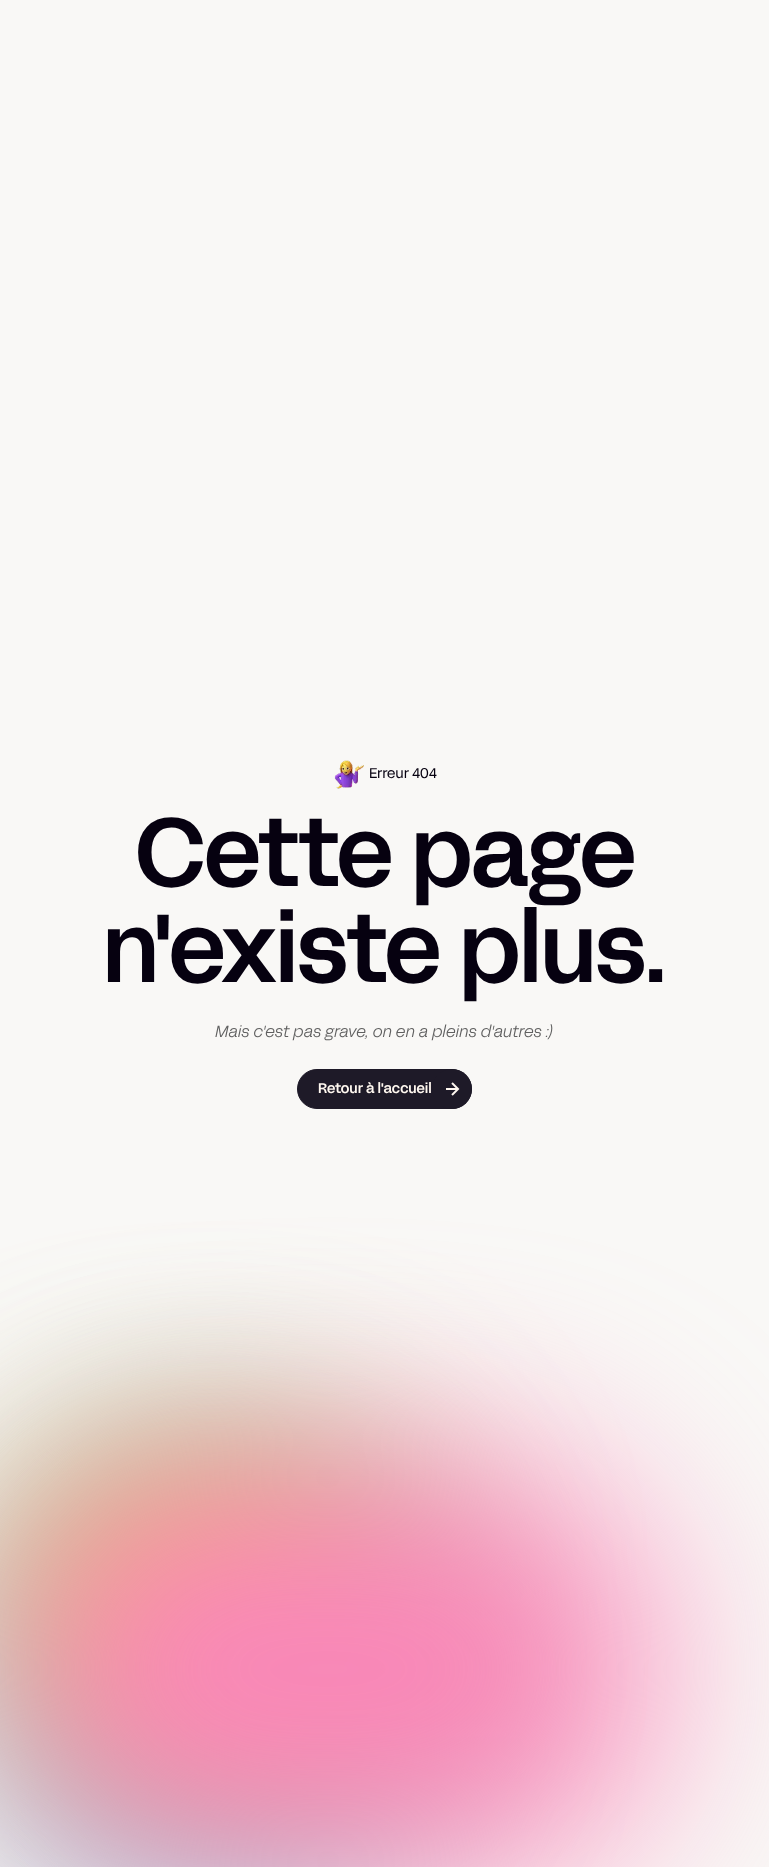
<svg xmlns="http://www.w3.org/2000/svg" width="769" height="1867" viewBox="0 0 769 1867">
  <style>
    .t1 { font: 14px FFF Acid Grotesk; fill: #060110; }
    .t2 { font: 500 96px FFF Acid Grotesk; letter-spacing: -1.5px; fill: #060110; }
    .t3 { font: italic 300 16px FFF Acid Grotesk; fill: #606060; }
    .t4 { font: 500 14px FFF Acid Grotesk; fill: #fff8f0; }
  </style>
  <rect width="100%" height="100%" fill="#f9f8f6"/>
  <image x="334" y="760" width="30" height="29" href="images/1.png"/>
  <text x="369" y="778" class="t1">Erreur 404</text>
  <text x="135" y="886" class="t2">Cette page</text>
  <text x="102" y="982" class="t2">n'existe plus.</text>
  <text x="215" y="1037" class="t3">Mais c'est pas grave, on en a pleins d'autres :)</text>
  <rect x="297.5" y="1069.5" width="174" height="39" rx="19.5" fill="#1e1a28" stroke="#1e1a28"/>
  <text x="318" y="1093" class="t4">Retour à l'accueil</text>
  <circle cx="452" cy="1089" r="20" fill="#1e1a28"/>
  <image x="446" y="1082" width="14" height="14" href="images/2.png"/>
  <rect x="0" y="1456" width="416" height="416" rx="208" fill="#32c7fd" filter="blur(100px)"/>
  <rect x="0" y="1456" width="427" height="320" rx="160" fill="#ffcd31" filter="blur(100px)"/>
  <rect x="0" y="1456" width="656" height="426" rx="213" fill="#f987b8" filter="blur(100px)"/>
</svg>
